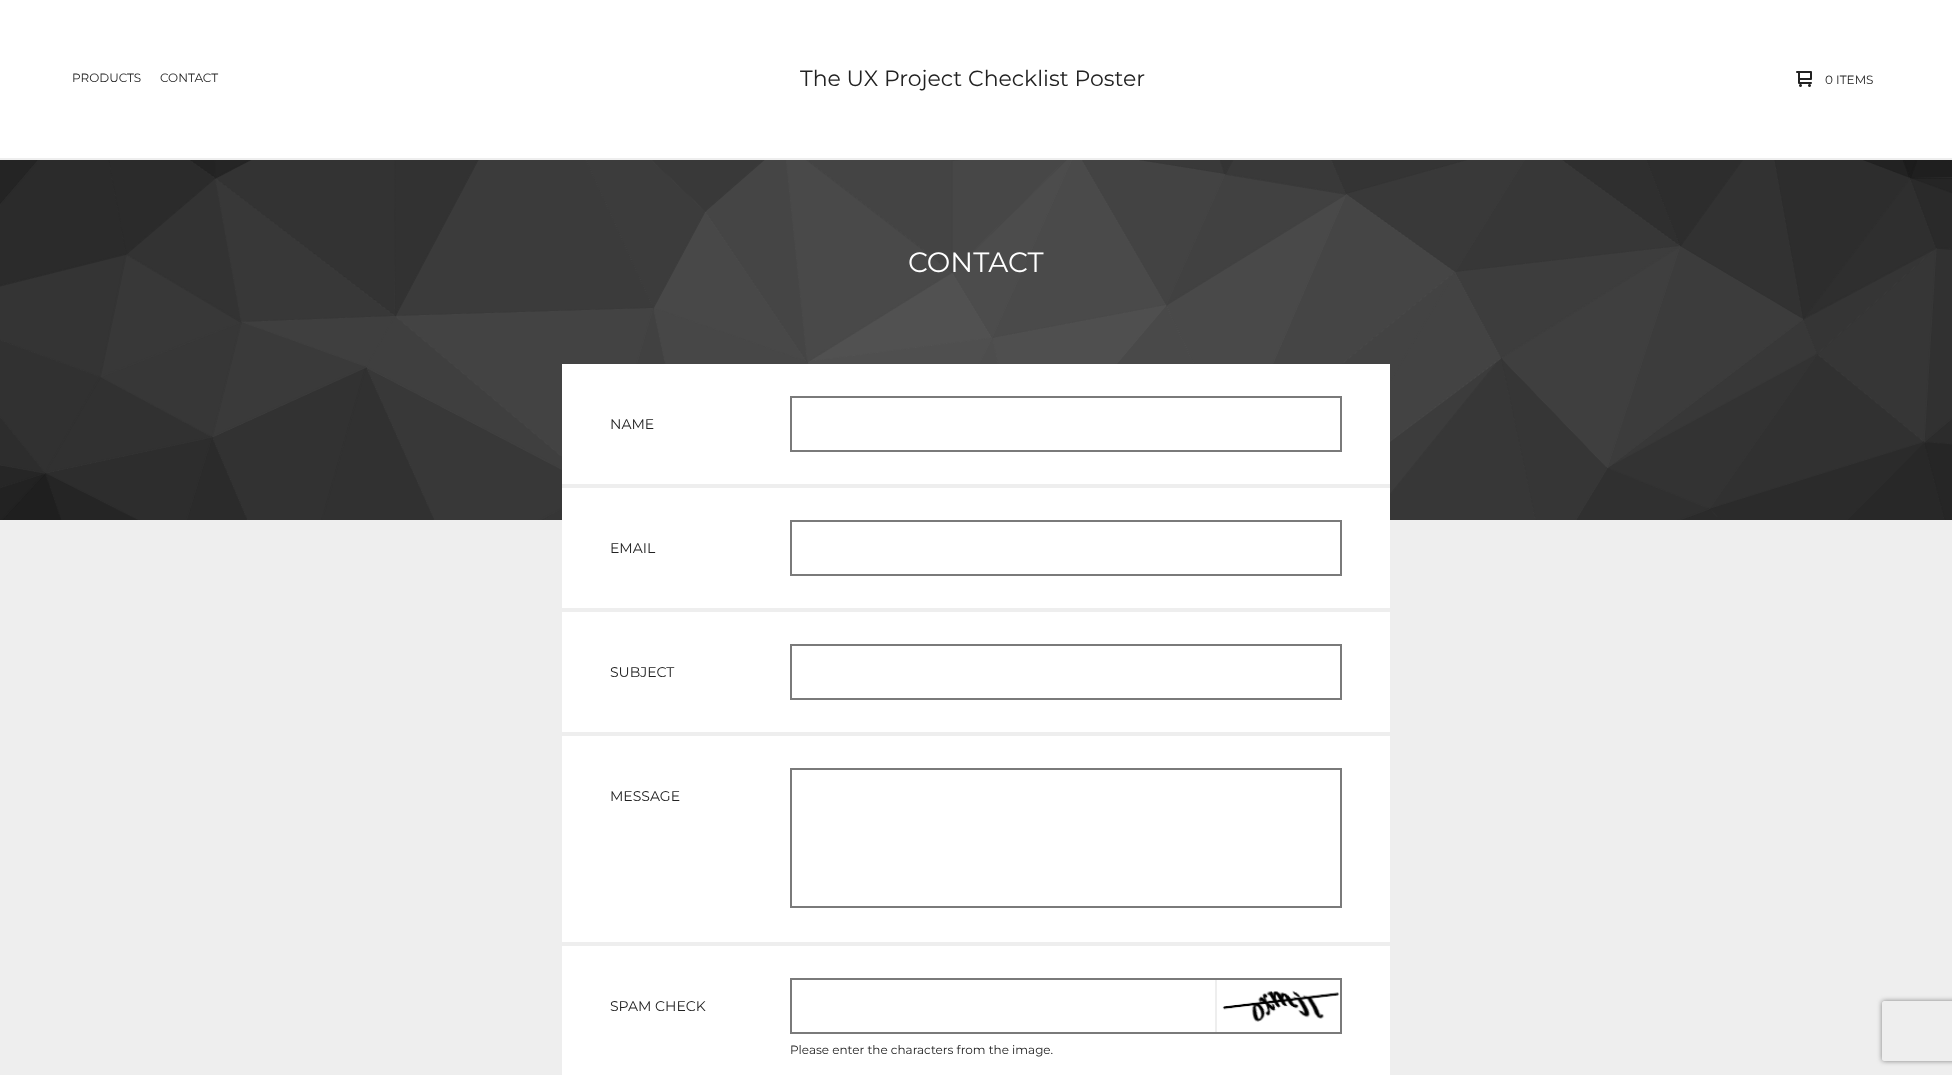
<svg xmlns="http://www.w3.org/2000/svg" width="1952" height="1075" viewBox="0 0 1952 1075">
  <style>
    .t1 { font: 12px Montserrat; fill: #222; }
    .t2 { font: 22px Montserrat; fill: #222; }
    .t3 { font: 28px Montserrat; fill: #fff; }
    .t4 { font: 14px Montserrat; fill: #222; }
  </style>
  <defs>
    <clipPath id="clip1"><path d="M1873 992H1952V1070H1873ZM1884 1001H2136C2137 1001 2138 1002 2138 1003V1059C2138 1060 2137 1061 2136 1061H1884C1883 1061 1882 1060 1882 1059V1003C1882 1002 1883 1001 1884 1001Z" clip-rule="evenodd"/></clipPath>
  </defs>
  <rect width="100%" height="100%" fill="#eee"/>
  <rect x="0" y="0" width="1952" height="158" fill="#fff"/>
  <text x="72" y="82" class="t1">PRODUCTS</text>
  <text x="160" y="82" class="t1">CONTACT</text>
  <text x="800" y="86" class="t2">The UX Project Checklist Poster</text>
  <image x="1796" y="71" width="16" height="16" href="images/1.png"/>
  <text x="1825" y="84" class="t1">0 ITEMS</text>
  <image x="0" y="160" width="1952" height="360" href="images/2.png"/>
  <text x="908" y="272" class="t3">CONTACT</text>
  <rect x="562" y="364" width="828" height="711" fill="#fff"/>
  <rect x="562" y="484" width="828" height="4" fill="#eee"/>
  <text x="610" y="429" class="t4">NAME</text>
  <rect x="791" y="397" width="550" height="54" fill="none" stroke="#7a7a7a" stroke-width="2"/>
  <rect x="562" y="608" width="828" height="4" fill="#eee"/>
  <text x="610" y="553" class="t4">EMAIL</text>
  <rect x="791" y="521" width="550" height="54" fill="none" stroke="#7a7a7a" stroke-width="2"/>
  <rect x="562" y="732" width="828" height="4" fill="#eee"/>
  <text x="610" y="677" class="t4">SUBJECT</text>
  <rect x="791" y="645" width="550" height="54" fill="none" stroke="#7a7a7a" stroke-width="2"/>
  <rect x="562" y="942" width="828" height="4" fill="#eee"/>
  <text x="610" y="801" class="t4">MESSAGE</text>
  <rect x="791" y="769" width="550" height="138" fill="none" stroke="#7a7a7a" stroke-width="2"/>
  <text x="610" y="1011" class="t4">SPAM CHECK</text>
  <rect x="791" y="979" width="550" height="54" fill="none" stroke="#7a7a7a" stroke-width="2"/>
  <rect x="1215" y="980" width="2" height="52" fill="#eee"/>
  <image x="1222" y="990" width="118" height="32" href="images/3.png"/>
  <text x="790" y="1054" class="t1">Please enter the characters from the image.</text>
  <g clip-path="url(#clip1)">
    <rect x="1882" y="1001" width="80" height="60" rx="2" fill="#808080" filter="blur(2.5px)"/>
  </g>
</svg>
